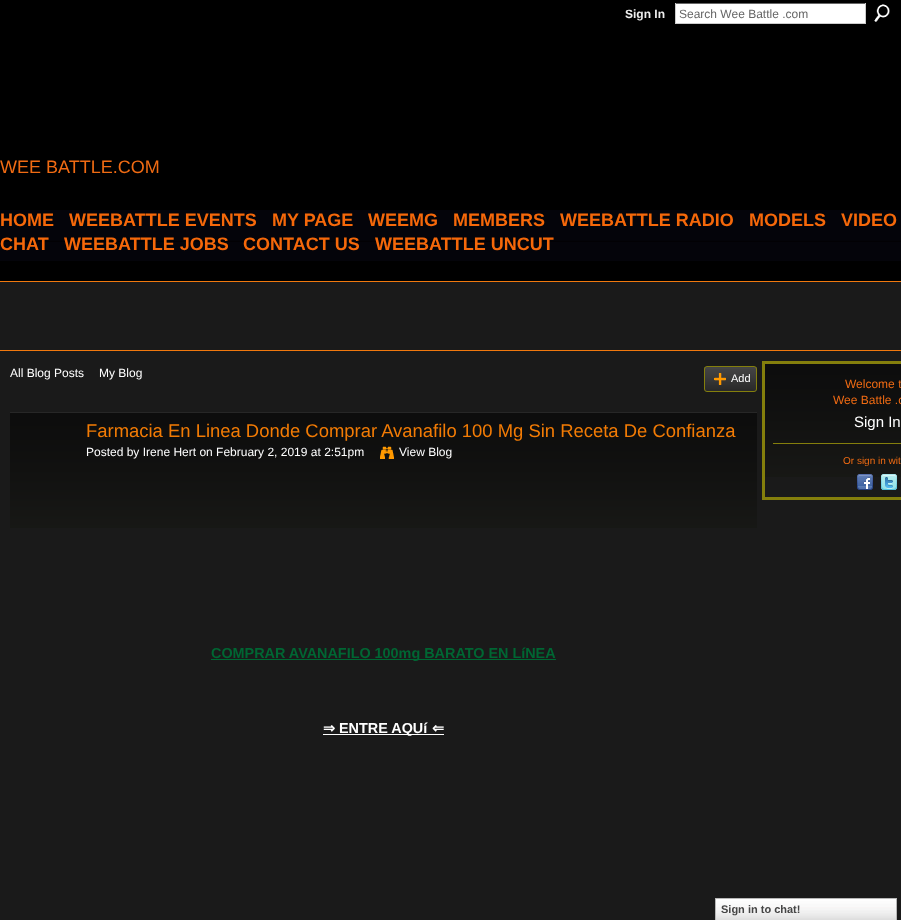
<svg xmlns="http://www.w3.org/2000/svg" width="901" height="920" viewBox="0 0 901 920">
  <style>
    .t1 { font: bold 12px Liberation Sans; fill: #eee; }
    .t2 { font: 12px Liberation Sans; fill: #666; }
    .t3 { font: 18px Liberation Sans; fill: #f06b13; }
    .t4 { font: bold 18px Liberation Sans; fill: #f5680a; }
    .t5 { font: 12px Liberation Sans; fill: #fff; }
    .t6 { font: 11px Liberation Sans; fill: #fff; }
    .t7 { font: 18.45px Liberation Sans; fill: #f27b05; }
    .t8 { font: bold 14.4px Liberation Sans; fill: #063; }
    .t9 { font: bold 14.4px DejaVu Sans; fill: #fff; }
    .t10 { font: bold 14.4px Liberation Sans; fill: #fff; }
    .t11 { font: 12px Liberation Sans; fill: #f06b13; }
    .t12 { font: 15px Liberation Sans; fill: #fff; }
    .t13 { font: 10px Liberation Sans; fill: #f06b13; }
    .t14 { font: bold 11px Liberation Sans; fill: #454545; }
  </style>
  <rect width="100%" height="100%" fill="#000"/>
  <text x="625" y="18" class="t1">Sign In</text>
  <rect x="676" y="4" width="189" height="19" fill="#fff"/>
  <rect x="675" y="3" width="191" height="1" fill="#666"/>
  <rect x="865" y="3" width="1" height="21" fill="#ccc"/>
  <rect x="675" y="23" width="191" height="1" fill="#ccc"/>
  <rect x="675" y="3" width="1" height="21" fill="#ccc"/>
  <text x="679" y="18" class="t2">Search Wee Battle .com</text>
  <image x="874" y="4" width="16" height="18" href="images/1.png"/>
  <text x="0" y="173" class="t3">WEE BATTLE.COM</text>
  <image x="0" y="210" width="901" height="51" href="images/2.png"/>
  <text x="0" y="226" class="t4">HOME</text>
  <text x="69" y="226" class="t4">WEEBATTLE EVENTS</text>
  <text x="272" y="226" class="t4">MY PAGE</text>
  <text x="368" y="226" class="t4">WEEMG</text>
  <text x="453" y="226" class="t4">MEMBERS</text>
  <text x="560" y="226" class="t4">WEEBATTLE RADIO</text>
  <text x="749" y="226" class="t4">MODELS</text>
  <text x="841" y="226" class="t4">VIDEO</text>
  <text x="0" y="250" class="t4">CHAT</text>
  <text x="64" y="250" class="t4">WEEBATTLE JOBS</text>
  <text x="243" y="250" class="t4">CONTACT US</text>
  <text x="375" y="250" class="t4">WEEBATTLE UNCUT</text>
  <rect x="0" y="282" width="901" height="68" fill="#1a1a1a"/>
  <rect x="0" y="281" width="901" height="1" fill="#f0780e"/>
  <rect x="0" y="351" width="901" height="569" fill="#1a1a1a"/>
  <rect x="0" y="350" width="901" height="1" fill="#f0780e"/>
  <text x="10" y="377" class="t5">All Blog Posts</text>
  <text x="99" y="377" class="t5">My Blog</text>
  <image x="704" y="367" width="53" height="25" href="images/3.png"/>
  <rect x="704.5" y="366.5" width="52" height="25" rx="2.5" fill="none" stroke="#847f0c"/>
  <image x="714" y="373" width="12" height="12" href="images/4.png"/>
  <text x="731" y="382" class="t6">Add</text>
  <image x="10" y="412" width="747" height="116" href="images/5.png"/>
  <text x="86" y="437" class="t7">Farmacia En Linea Donde Comprar Avanafilo 100 Mg Sin Receta De Confianza</text>
  <text x="86" y="456" class="t5">Posted by Irene Hert on February 2, 2019 at 2:51pm</text>
  <image x="380" y="446" width="14" height="13" href="images/6.png"/>
  <text x="399" y="456" class="t5">View Blog</text>
  <rect x="211" y="659" width="345" height="1" fill="#063"/>
  <text x="211" y="658" class="t8">COMPRAR AVANAFILO 100mg BARATO EN LíNEA</text>
  <text x="323" y="733" class="t9">⇒</text>
  <rect x="323" y="734" width="121" height="1" fill="#fff"/>
  <text x="339" y="733" class="t10">ENTRE AQUí</text>
  <text x="432" y="733" class="t9">⇐</text>
  <image x="765" y="364" width="136" height="113" href="images/7.png"/>
  <rect x="763.5" y="362.5" width="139" height="136" fill="none" stroke="#847f0c" stroke-width="3"/>
  <text x="845" y="388" class="t11">Welcome t</text>
  <text x="833" y="404" class="t11">Wee Battle .c</text>
  <text x="854" y="427" class="t12">Sign In</text>
  <rect x="773" y="443" width="128" height="1" fill="#847f0c"/>
  <text x="843" y="464" class="t13">Or sign in wit</text>
  <image x="857" y="474" width="16" height="16" href="images/8.png"/>
  <image x="881" y="474" width="16" height="16" href="images/9.png"/>
  <image x="716" y="899" width="180" height="21" href="images/10.png"/>
  <rect x="715.5" y="898.5" width="181" height="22" fill="none" stroke="#b7b7b7"/>
  <text x="721" y="913" class="t14">Sign in to chat!</text>
</svg>
